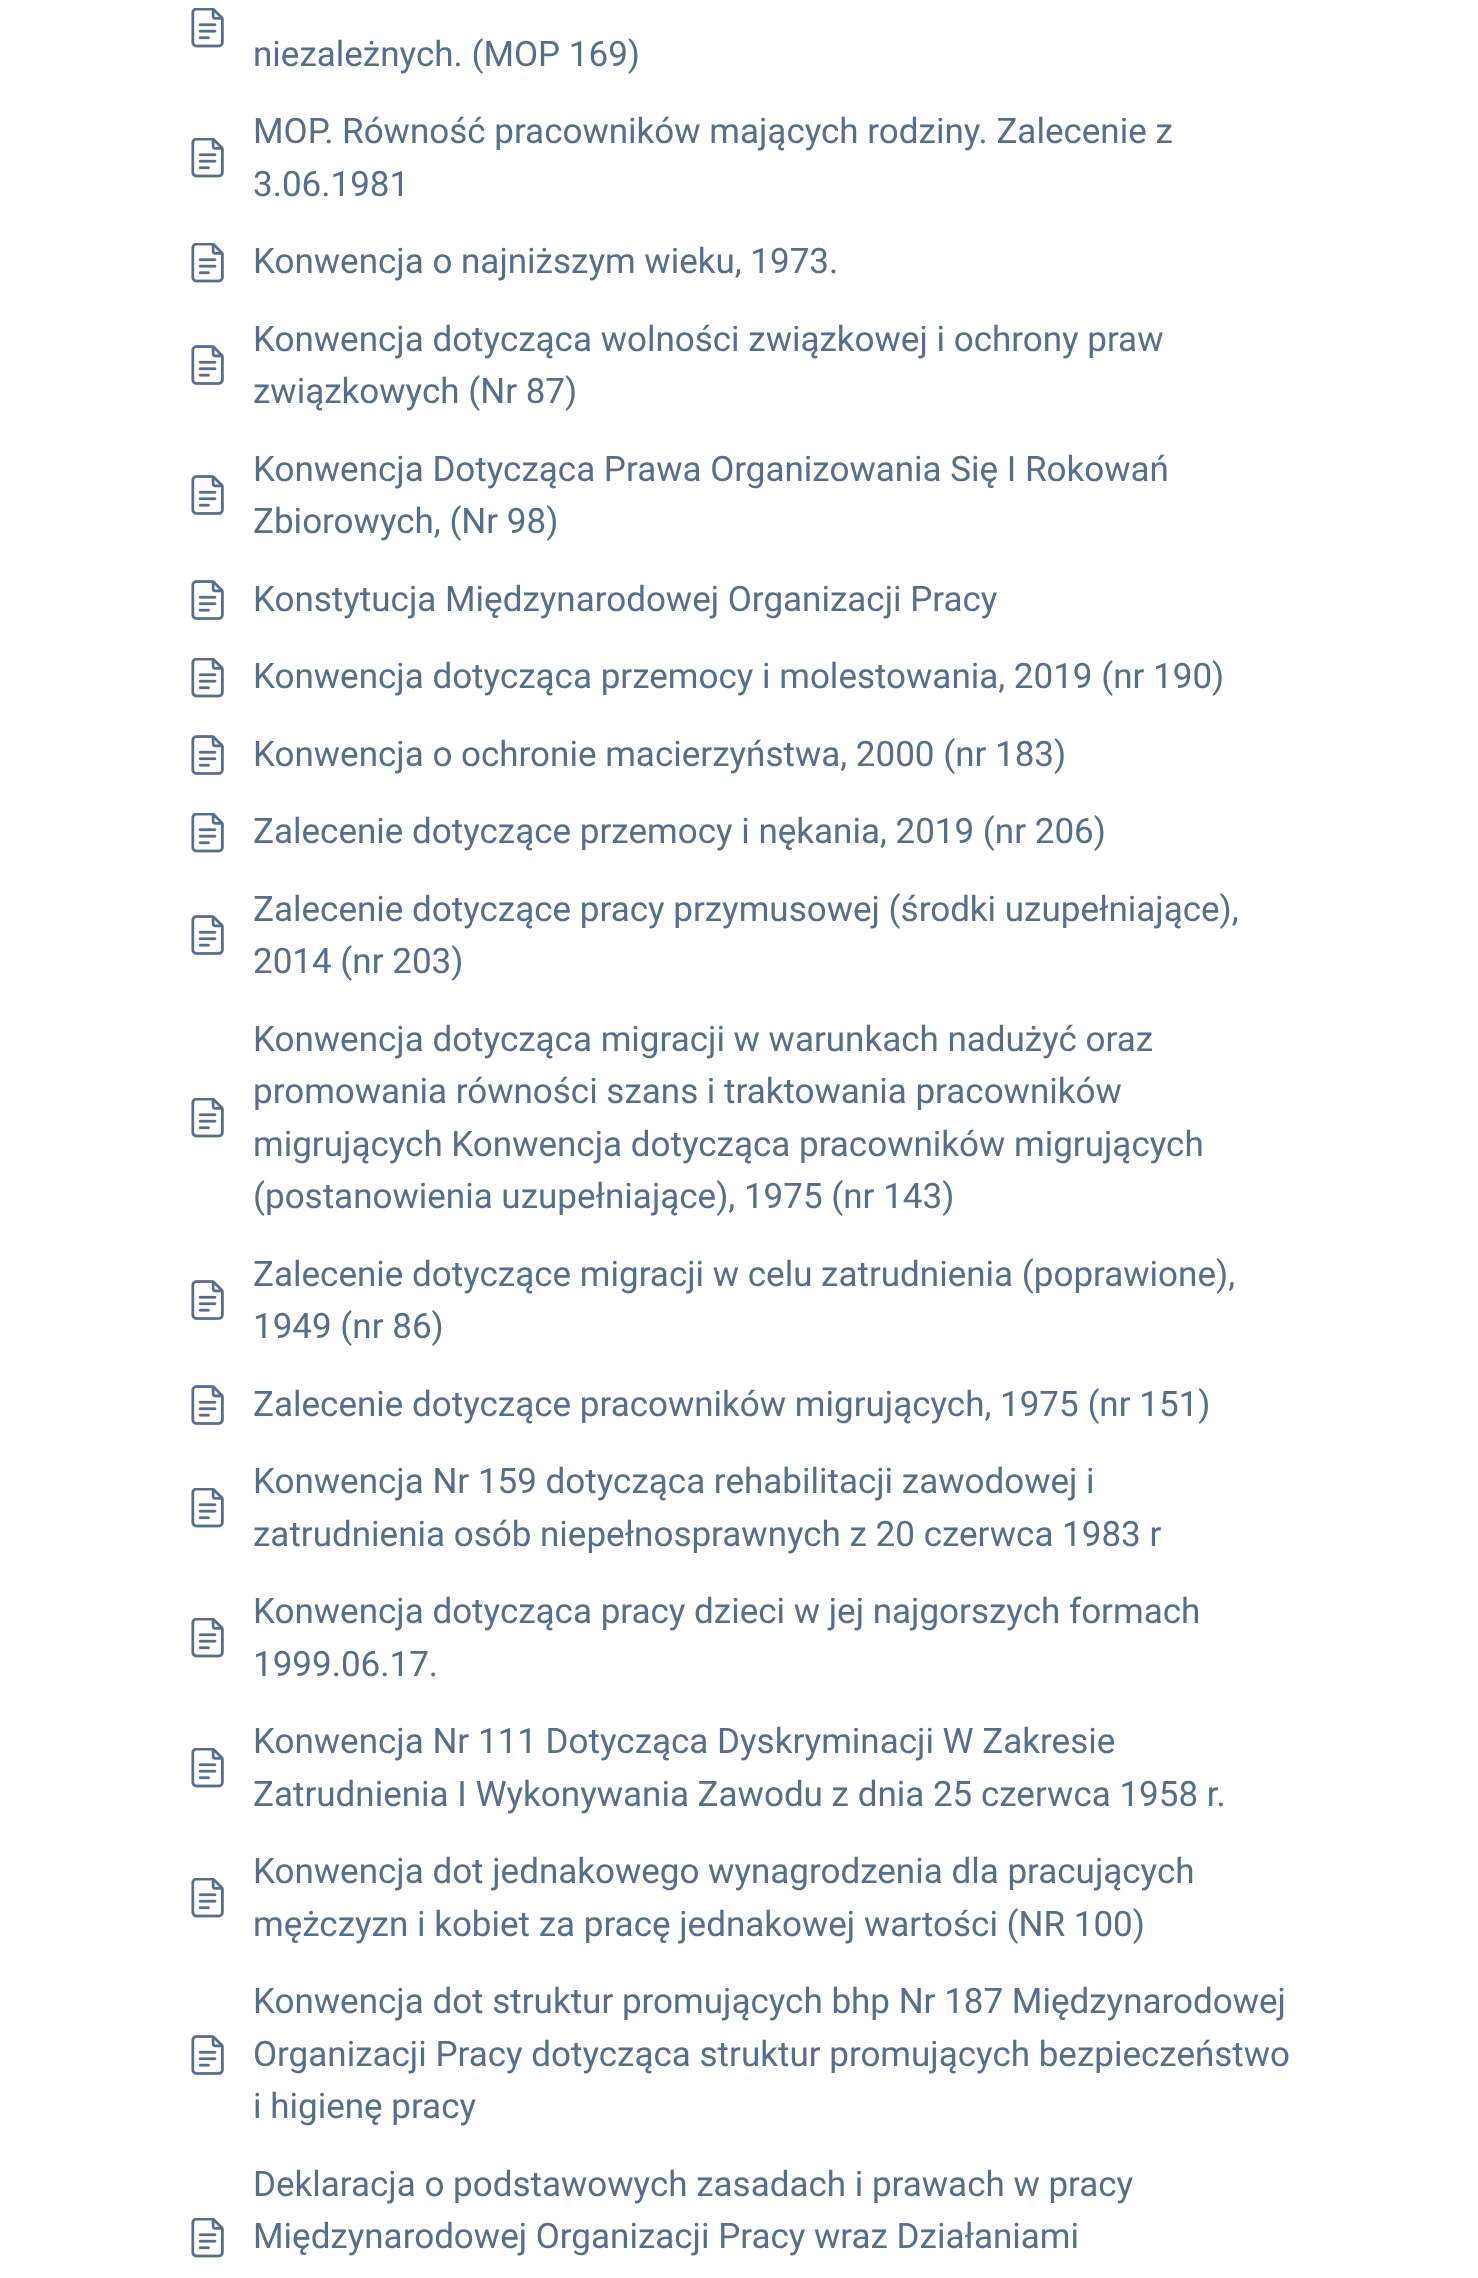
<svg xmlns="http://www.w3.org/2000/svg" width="1478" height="2278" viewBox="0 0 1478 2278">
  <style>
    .t1 { font: 35px Roboto; fill: #566e8b; }
  </style>
  <rect width="100%" height="100%" fill="#fff"/>
  <image x="191" y="8" width="33" height="40" href="images/1.png"/>
  <text x="253" y="66" class="t1">niezależnych. (MOP 169)</text>
  <image x="191" y="138" width="33" height="40" href="images/1.png"/>
  <text x="253" y="143" class="t1">MOP. Równość pracowników mających rodziny. Zalecenie z</text>
  <text x="253" y="196" class="t1">3.06.1981</text>
  <image x="191" y="243" width="33" height="40" href="images/1.png"/>
  <text x="253" y="273" class="t1">Konwencja o najniższym wieku, 1973.</text>
  <image x="191" y="345" width="33" height="40" href="images/2.png"/>
  <text x="253" y="351" class="t1">Konwencja dotycząca wolności związkowej i ochrony praw</text>
  <text x="253" y="403" class="t1">związkowych (Nr 87)</text>
  <image x="191" y="475" width="33" height="40" href="images/2.png"/>
  <text x="253" y="481" class="t1">Konwencja Dotycząca Prawa Organizowania Się I Rokowań</text>
  <text x="253" y="533" class="t1">Zbiorowych, (Nr 98)</text>
  <image x="191" y="580" width="33" height="40" href="images/2.png"/>
  <text x="253" y="611" class="t1">Konstytucja Międzynarodowej Organizacji Pracy</text>
  <image x="191" y="658" width="33" height="40" href="images/1.png"/>
  <text x="253" y="688" class="t1">Konwencja dotycząca przemocy i molestowania, 2019 (nr 190)</text>
  <image x="191" y="735" width="33" height="40" href="images/2.png"/>
  <text x="253" y="766" class="t1">Konwencja o ochronie macierzyństwa, 2000 (nr 183)</text>
  <image x="191" y="813" width="33" height="40" href="images/1.png"/>
  <text x="253" y="843" class="t1">Zalecenie dotyczące przemocy i nękania, 2019 (nr 206)</text>
  <image x="191" y="915" width="33" height="40" href="images/2.png"/>
  <text x="253" y="921" class="t1">Zalecenie dotyczące pracy przymusowej (środki uzupełniające),</text>
  <text x="253" y="973" class="t1">2014 (nr 203)</text>
  <image x="191" y="1098" width="33" height="40" href="images/1.png"/>
  <text x="253" y="1051" class="t1">Konwencja dotycząca migracji w warunkach nadużyć oraz</text>
  <text x="253" y="1103" class="t1">promowania równości szans i traktowania pracowników</text>
  <text x="253" y="1156" class="t1">migrujących Konwencja dotycząca pracowników migrujących</text>
  <text x="253" y="1208" class="t1">(postanowienia uzupełniające), 1975 (nr 143)</text>
  <image x="191" y="1280" width="33" height="40" href="images/2.png"/>
  <text x="253" y="1286" class="t1">Zalecenie dotyczące migracji w celu zatrudnienia (poprawione),</text>
  <text x="253" y="1338" class="t1">1949 (nr 86)</text>
  <image x="191" y="1385" width="33" height="40" href="images/2.png"/>
  <text x="253" y="1416" class="t1">Zalecenie dotyczące pracowników migrujących, 1975 (nr 151)</text>
  <image x="191" y="1488" width="33" height="40" href="images/1.png"/>
  <text x="253" y="1493" class="t1">Konwencja Nr 159 dotycząca rehabilitacji zawodowej i</text>
  <text x="253" y="1546" class="t1">zatrudnienia osób niepełnosprawnych z 20 czerwca 1983 r</text>
  <image x="191" y="1618" width="33" height="40" href="images/1.png"/>
  <text x="253" y="1623" class="t1">Konwencja dotycząca pracy dzieci w jej najgorszych formach</text>
  <text x="253" y="1676" class="t1">1999.06.17.</text>
  <image x="191" y="1748" width="33" height="40" href="images/1.png"/>
  <text x="253" y="1753" class="t1">Konwencja Nr 111 Dotycząca Dyskryminacji W Zakresie</text>
  <text x="253" y="1806" class="t1">Zatrudnienia I Wykonywania Zawodu z dnia 25 czerwca 1958 r.</text>
  <image x="191" y="1878" width="33" height="40" href="images/1.png"/>
  <text x="253" y="1883" class="t1">Konwencja dot jednakowego wynagrodzenia dla pracujących</text>
  <text x="253" y="1936" class="t1">mężczyzn i kobiet za pracę jednakowej wartości (NR 100)</text>
  <image x="191" y="2035" width="33" height="40" href="images/2.png"/>
  <text x="253" y="2013" class="t1">Konwencja dot struktur promujących bhp Nr 187 Międzynarodowej</text>
  <text x="253" y="2066" class="t1">Organizacji Pracy dotycząca struktur promujących bezpieczeństwo</text>
  <text x="253" y="2118" class="t1">i higienę pracy</text>
  <image x="191" y="2218" width="33" height="40" href="images/1.png"/>
  <text x="253" y="2196" class="t1">Deklaracja o podstawowych zasadach i prawach w pracy</text>
  <text x="253" y="2248" class="t1">Międzynarodowej Organizacji Pracy wraz Działaniami</text>
</svg>
